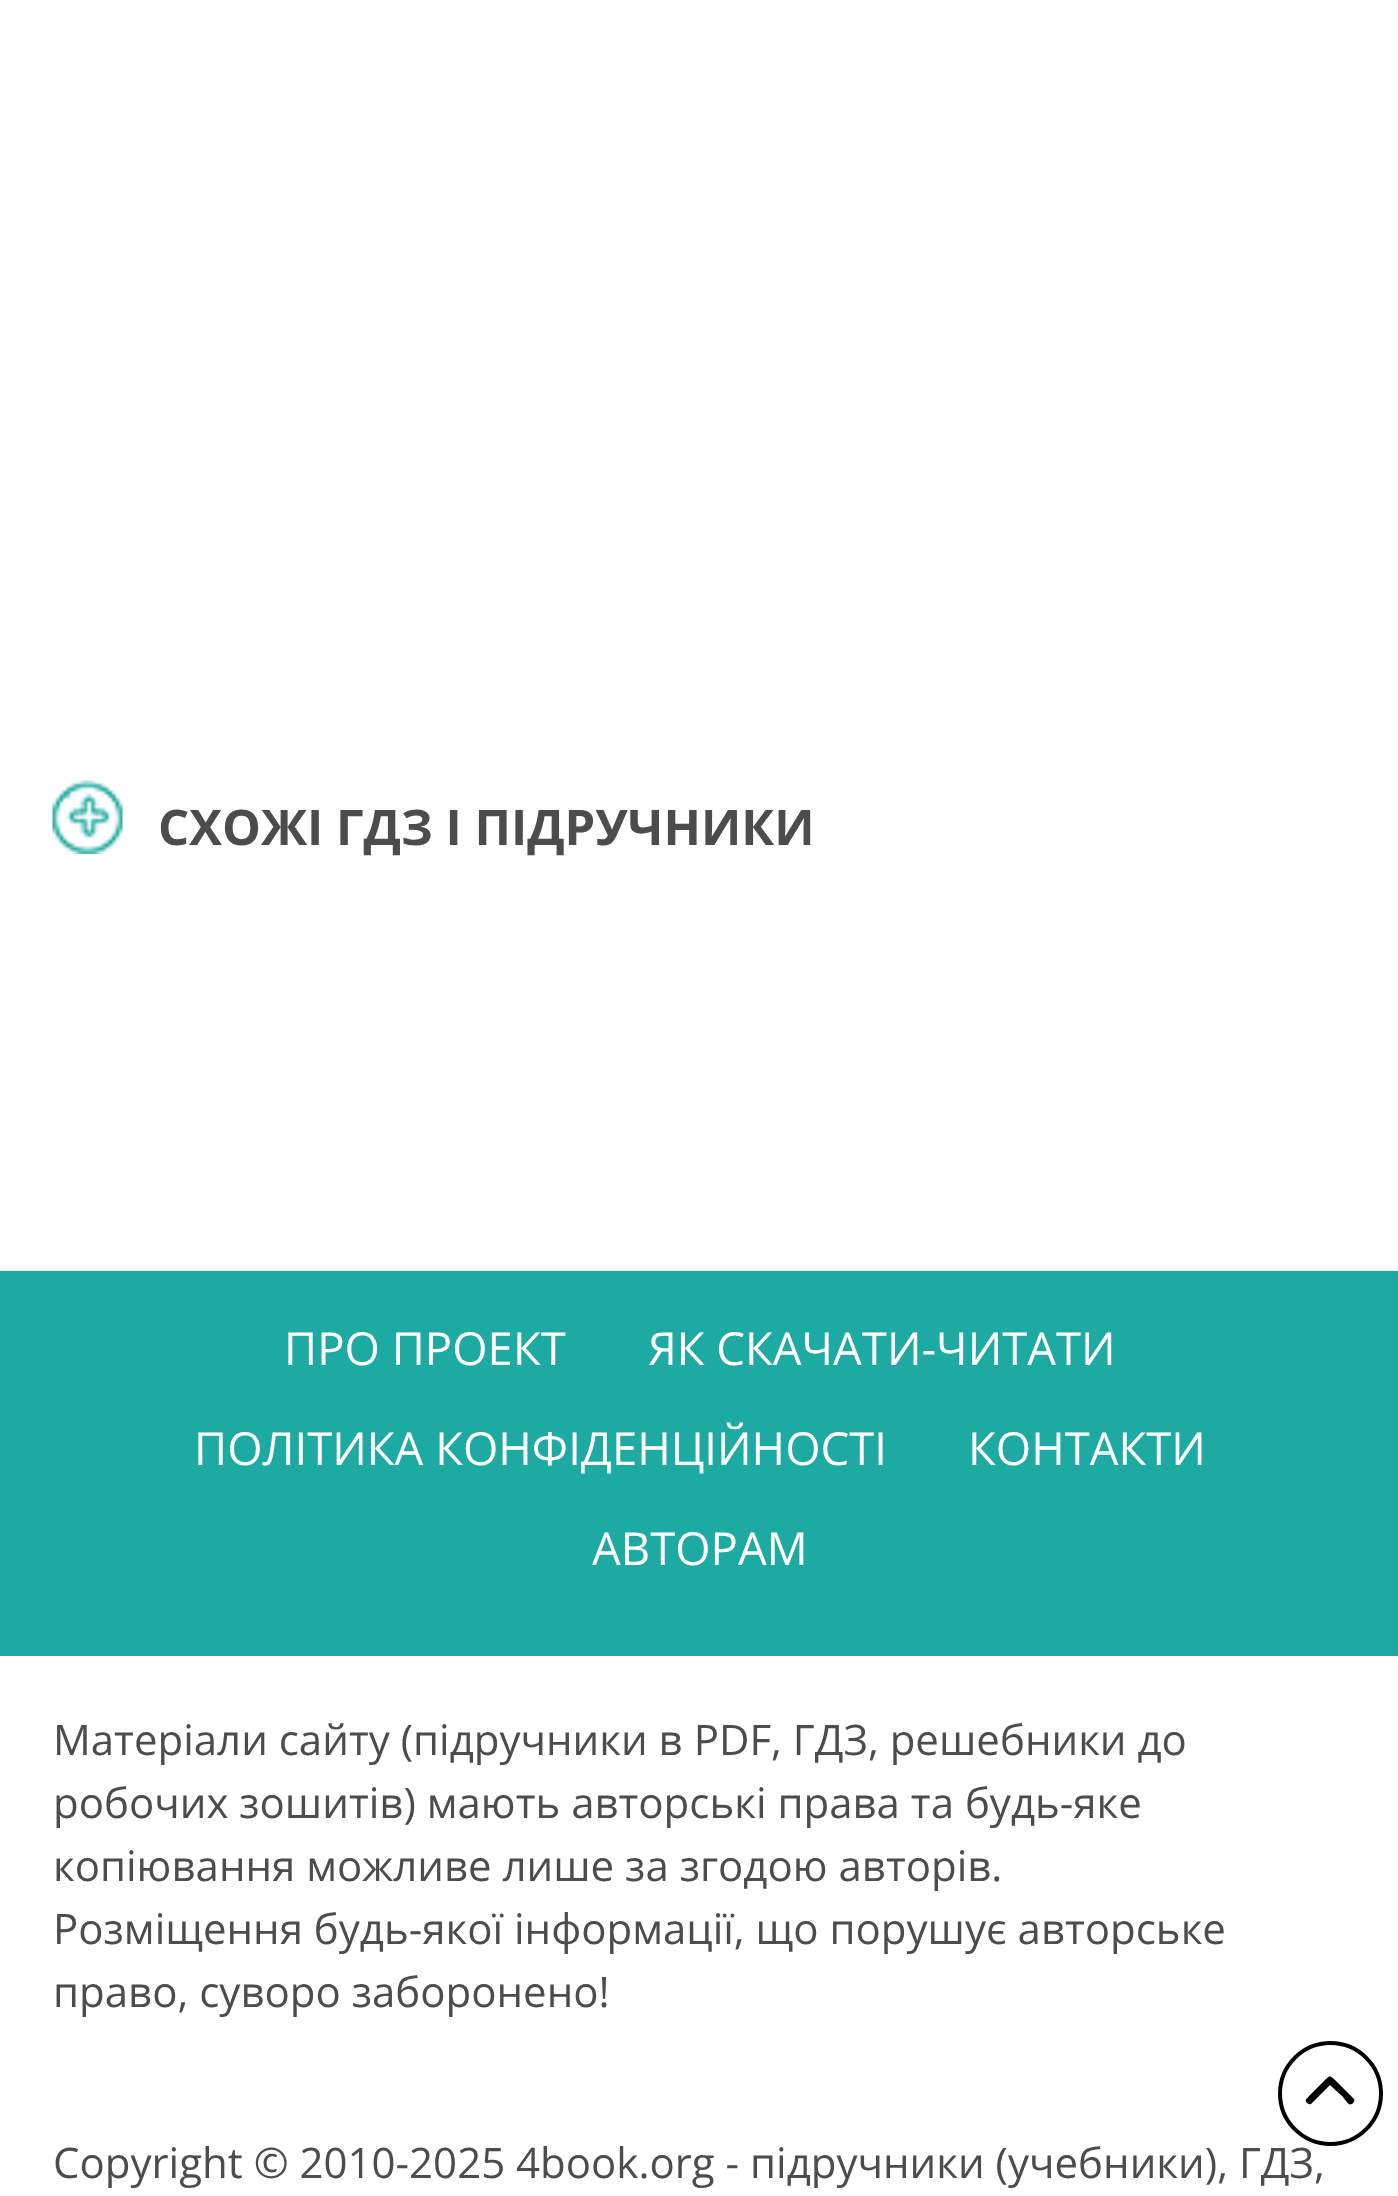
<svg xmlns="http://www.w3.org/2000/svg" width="1398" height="2196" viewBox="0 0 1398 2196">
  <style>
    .t1 { font: bold 49px Open Sans; fill: #4c4c4c; }
    .t2 { font: 45.5px Open Sans; fill: #fff; }
    .t3 { font: 42px Open Sans; fill: #4c4c4c; }
  </style>
  <rect width="100%" height="100%" fill="#fff"/>
  <image x="52" y="780" width="71" height="74" href="images/1.png"/>
  <text x="158" y="845" class="t1">СХОЖІ ГДЗ І ПІДРУЧНИКИ</text>
  <rect x="0" y="1271" width="1398" height="385" fill="#1daaa3"/>
  <text x="284" y="1365" class="t2">ПРО ПРОЕКТ</text>
  <text x="648" y="1365" class="t2">ЯК СКАЧАТИ-ЧИТАТИ</text>
  <text x="194" y="1465" class="t2">ПОЛІТИКА КОНФІДЕНЦІЙНОСТІ</text>
  <text x="968" y="1465" class="t2">КОНТАКТИ</text>
  <text x="592" y="1565" class="t2">АВТОРАМ</text>
  <text x="53" y="1755" class="t3">Матеріали сайту (підручники в PDF, ГДЗ, решебники до</text>
  <text x="53" y="1818" class="t3">робочих зошитів) мають авторські права та будь-яке</text>
  <text x="53" y="1881" class="t3">копіювання можливе лише за згодою авторів.</text>
  <text x="53" y="1944" class="t3">Розміщення будь-якої інформації, що порушує авторське</text>
  <text x="53" y="2007" class="t3">право, суворо заборонено!</text>
  <text x="53" y="2178" class="t3">Copyright © 2010-2025 4book.org - підручники (учебники), ГДЗ,</text>
  <circle cx="1330.5" cy="2093.5" r="50.5" fill="none" stroke="#000" stroke-width="4"/>
  <path d="M1354 2099C1355 2100 1354 2102 1353 2103C1349 2107 1347 2102 1343 2097L1330 2085L1311 2104C1309 2105 1308 2103 1307 2103C1304 2099 1307 2099 1310 2095L1325 2080C1331 2075 1329 2075 1335 2080Z" fill="#000"/>
</svg>
